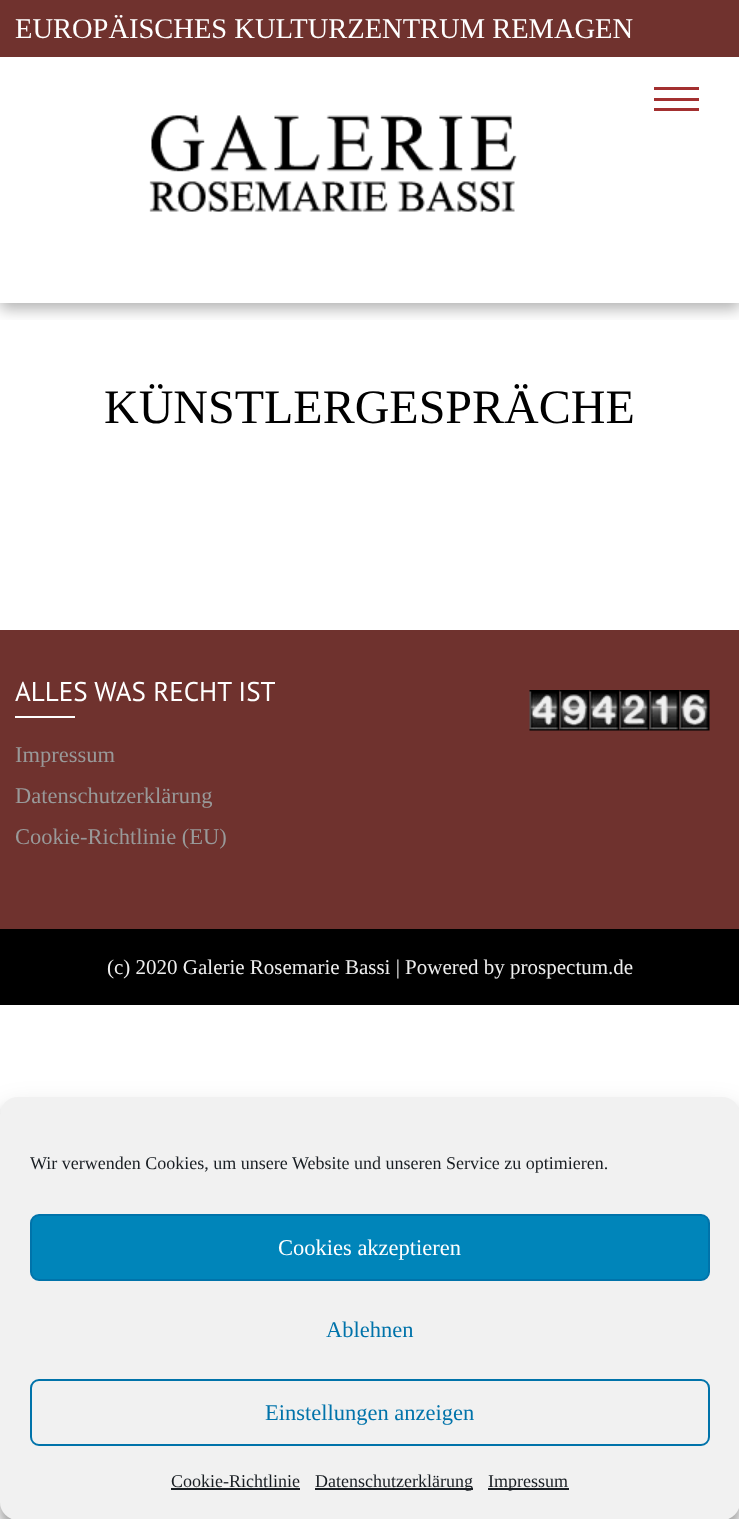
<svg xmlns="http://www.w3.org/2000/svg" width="739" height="1519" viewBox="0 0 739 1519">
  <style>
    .t1 { font: 28.5px Tinos; fill: #fff; }
    .t2 { font: 48px Tinos; fill: #000; }
    .t3 { font: 27px PT Sans; fill: #fff; }
    .t4 { font: 22.5px Tinos; fill: #999; }
    .t5 { font: 21px Tinos; fill: #eee; }
    .t6 { font: 18px Tinos; fill: #191e23; }
    .t7 { font: 22.5px Tinos; fill: #fff; }
    .t8 { font: 22.5px Tinos; fill: #0073aa; }
  </style>
  <defs>
    <clipPath id="clip1"><rect x="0" y="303" width="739" height="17"/></clipPath>
  </defs>
  <rect width="100%" height="100%" fill="#fff"/>
  <g clip-path="url(#clip1)">
    <rect x="0" y="63" width="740" height="246" fill="#0000004d" filter="blur(7.5px)"/>
  </g>
  <rect x="0" y="0" width="739" height="57" fill="#70322e"/>
  <text x="15" y="38" class="t1">EUROPÄISCHES KULTURZENTRUM REMAGEN</text>
  <rect x="654" y="87" width="45" height="3" fill="#a33030"/>
  <rect x="654" y="98" width="45" height="3" fill="#a33030"/>
  <rect x="654" y="108" width="45" height="3" fill="#a33030"/>
  <image x="149" y="115" width="368" height="97" href="images/1.png"/>
  <text x="104" y="423" class="t2">KÜNSTLERGESPRÄCHE</text>
  <rect x="0" y="929" width="739" height="76" fill="#000"/>
  <rect x="0" y="630" width="739" height="299" fill="#6f322e"/>
  <text x="15" y="701" class="t3">ALLES WAS RECHT IST</text>
  <rect x="15" y="716" width="60" height="2" fill="#fff"/>
  <text x="15" y="762" class="t4">Impressum</text>
  <text x="15" y="803" class="t4">Datenschutzerklärung</text>
  <text x="15" y="844" class="t4">Cookie-Richtlinie (EU)</text>
  <image x="529" y="690" width="31" height="41" href="images/2.png"/>
  <image x="559" y="690" width="31" height="41" href="images/3.png"/>
  <image x="589" y="690" width="31" height="41" href="images/4.png"/>
  <image x="619" y="690" width="31" height="41" href="images/5.png"/>
  <image x="649" y="690" width="31" height="41" href="images/6.png"/>
  <image x="679" y="690" width="31" height="41" href="images/7.png"/>
  <text x="107" y="974" class="t5">(c) 2020 Galerie Rosemarie Bassi | Powered by prospectum.de</text>
  <rect x="0" y="1106" width="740" height="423" rx="18" fill="#0000003b" filter="blur(4.5px)"/>
  <rect x="0" y="1112" width="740" height="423" rx="18" fill="#00000030" filter="blur(15px)"/>
  <rect x="0" y="1097" width="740" height="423" rx="18" fill="#f1f1f1"/>
  <text x="30" y="1169" class="t6">Wir verwenden Cookies, um unsere Website und unseren Service zu optimieren.</text>
  <rect x="31" y="1215" width="678" height="65" rx="8" fill="#0085ba" stroke="#0073aa" stroke-width="2"/>
  <text x="278" y="1255" class="t7">Cookies akzeptieren</text>
  <text x="326" y="1337" class="t8">Ablehnen</text>
  <rect x="31" y="1380" width="678" height="65" rx="8" fill="none" stroke="#0073aa" stroke-width="2"/>
  <text x="265" y="1420" class="t8">Einstellungen anzeigen</text>
  <text x="171" y="1487" class="t6">Cookie-Richtlinie</text>
  <rect x="171" y="1488" width="129" height="2" fill="#191e23"/>
  <rect x="315" y="1488" width="158" height="2" fill="#191e23"/>
  <text x="315" y="1487" class="t6">Datenschutzerklärung</text>
  <rect x="488" y="1488" width="81" height="2" fill="#191e23"/>
  <text x="488" y="1487" class="t6">Impressum</text>
</svg>
